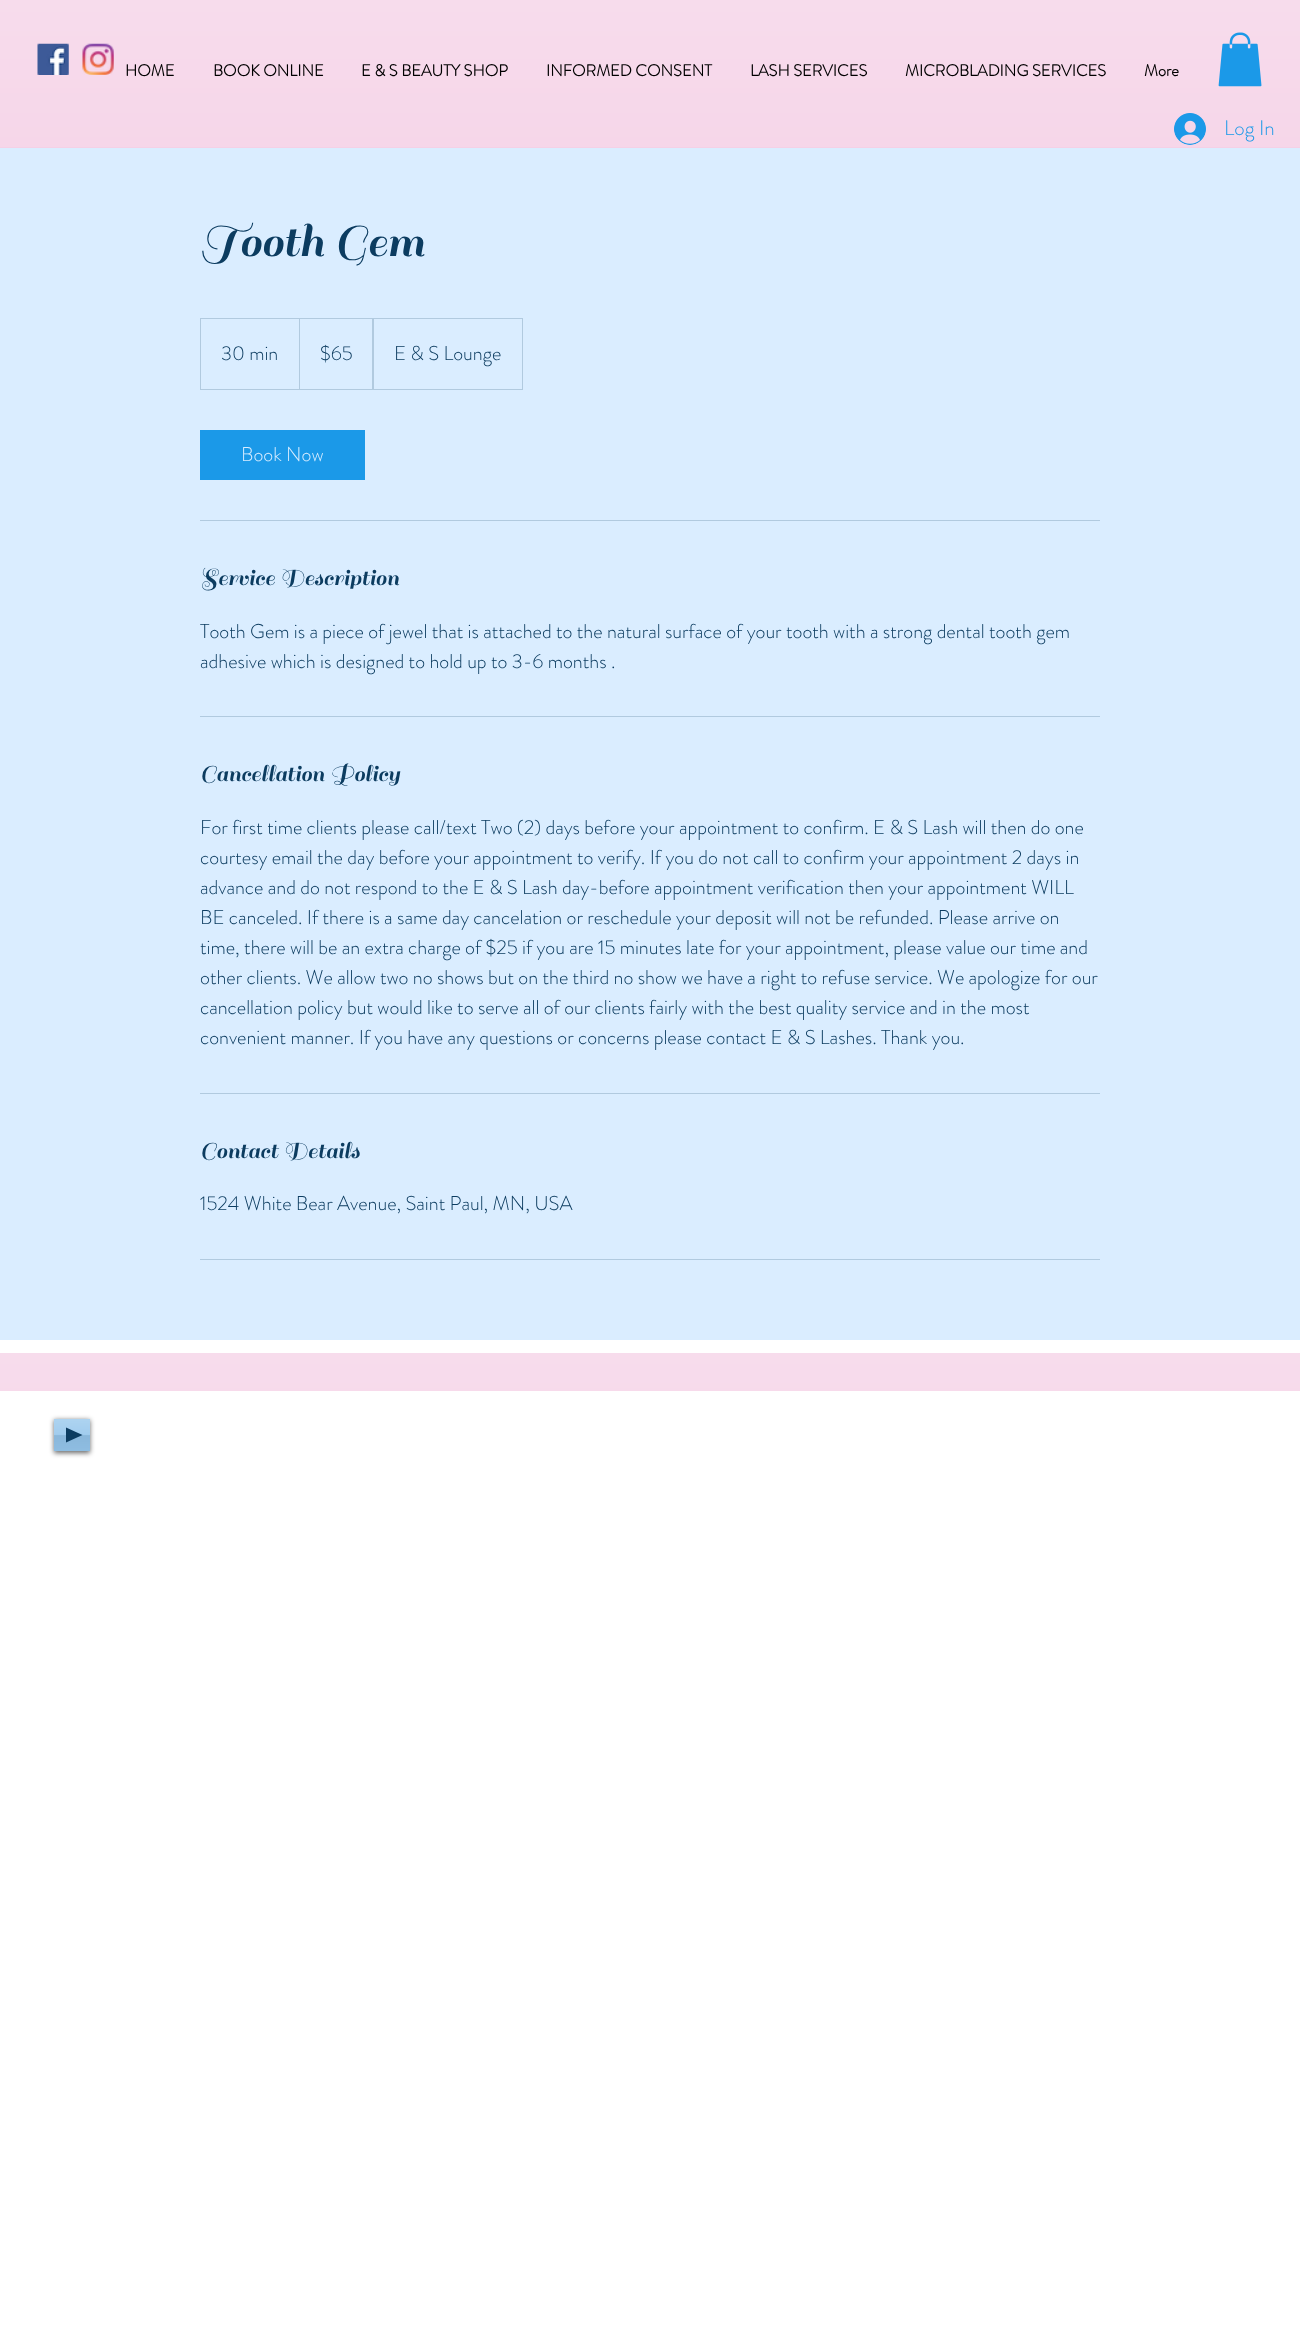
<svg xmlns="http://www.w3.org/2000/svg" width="1300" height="2330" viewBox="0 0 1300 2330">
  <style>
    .t1 { font: bold 16.25px 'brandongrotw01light'; fill: #000; }
    .t2 { font: 300 21px 'brandongrotw01light'; fill: #1b99e8; }
    .t3 { font: 50px Sail; fill: #0c3c60; }
    .t4 { font: 300 20px 'brandongrotw01light'; fill: #0c3c60; }
    .t5 { font: 300 20px 'brandongrotw01light'; fill: #daedff; }
    .t6 { font: 25px Sail; fill: #0c3c60; }
  </style>
  <rect width="100%" height="100%" fill="#fff"/>
  <rect x="0" y="0" width="1300" height="148" fill="#f5d0e6"/>
  <image x="0" y="0" width="1300" height="147" href="images/1.png"/>
  <image x="37" y="43" width="32" height="32" href="images/2.png"/>
  <image x="82" y="43" width="32" height="32" href="images/3.png"/>
  <text x="125" y="76" class="t1">HOME</text>
  <text x="213" y="76" class="t1">BOOK ONLINE</text>
  <text x="361" y="76" class="t1">E &amp; S BEAUTY SHOP</text>
  <text x="546" y="76" class="t1">INFORMED CONSENT</text>
  <text x="750" y="76" class="t1">LASH SERVICES</text>
  <text x="905" y="76" class="t1">MICROBLADING SERVICES</text>
  <text x="1144" y="76" class="t1">More</text>
  <image x="1218" y="32" width="44" height="55" href="images/4.png"/>
  <image x="1174" y="113" width="32" height="32" href="images/5.png"/>
  <text x="1224" y="135" class="t2">Log In</text>
  <rect x="0" y="148" width="1300" height="1192" fill="#daedff"/>
  <text x="200" y="256" class="t3">Tooth Gem</text>
  <rect x="200.5" y="318.5" width="322" height="71" fill="none" stroke="#b1cadf"/>
  <text x="221" y="360" class="t4">30 min</text>
  <path d="M299 389V318L300 319V389Z" fill="#b1cadf"/>
  <text x="320" y="360" class="t4">$65</text>
  <path d="M372 389V318L374 319V389Z" fill="#b1cadf"/>
  <text x="394" y="360" class="t4">E &amp; S Lounge</text>
  <rect x="200" y="430" width="165" height="50" fill="#1b99e8"/>
  <text x="241" y="461" class="t5">Book Now</text>
  <rect x="200" y="520" width="900" height="1" fill="#b1cadf"/>
  <text x="200" y="585" class="t6">Service Description</text>
  <text x="200" y="638" class="t4">Tooth Gem is a piece of jewel that is attached to the natural surface of your tooth with a strong dental tooth gem</text>
  <text x="200" y="668" class="t4">adhesive which is designed to hold up to 3-6 months .</text>
  <rect x="200" y="716" width="900" height="1" fill="#b1cadf"/>
  <text x="200" y="781" class="t6">Cancellation Policy</text>
  <text x="200" y="834" class="t4">For first time clients please call/text Two (2) days before your appointment to confirm. E &amp; S Lash will then do one</text>
  <text x="200" y="864" class="t4">courtesy email the day before your appointment to verify. If you do not call to confirm your appointment 2 days in</text>
  <text x="200" y="894" class="t4">advance and do not respond to the E &amp; S Lash day-before appointment verification then your appointment WILL</text>
  <text x="200" y="924" class="t4">BE canceled. If there is a same day cancelation or reschedule your deposit will not be refunded. Please arrive on</text>
  <text x="200" y="954" class="t4">time, there will be an extra charge of $25 if you are 15 minutes late for your appointment, please value our time and</text>
  <text x="200" y="984" class="t4">other clients. We allow two no shows but on the third no show we have a right to refuse service. We apologize for our</text>
  <text x="200" y="1014" class="t4">cancellation policy but would like to serve all of our clients fairly with the best quality service and in the most</text>
  <text x="200" y="1044" class="t4">convenient manner. If you have any questions or concerns please contact E &amp; S Lashes. Thank you.</text>
  <rect x="200" y="1093" width="900" height="1" fill="#b1cadf"/>
  <text x="200" y="1158" class="t6">Contact Details</text>
  <text x="200" y="1210" class="t4">1524 White Bear Avenue, Saint Paul, MN, USA</text>
  <rect x="200" y="1259" width="900" height="1" fill="#b1cadf"/>
  <rect x="0" y="1353" width="1300" height="38" fill="#f5d0e6"/>
  <image x="0" y="1353" width="1300" height="38" href="images/6.png"/>
  <rect x="54" y="1420" width="36" height="33" fill="#00000099" filter="blur(2.5px)"/>
  <rect x="54" y="1419" width="36" height="32" fill="#95c6ec"/>
  <image x="54" y="1419" width="36" height="32" href="images/7.png"/>
  <path d="M66 1442.5V1427.5L82.5 1435Z" fill="#0c3c60"/>
</svg>
